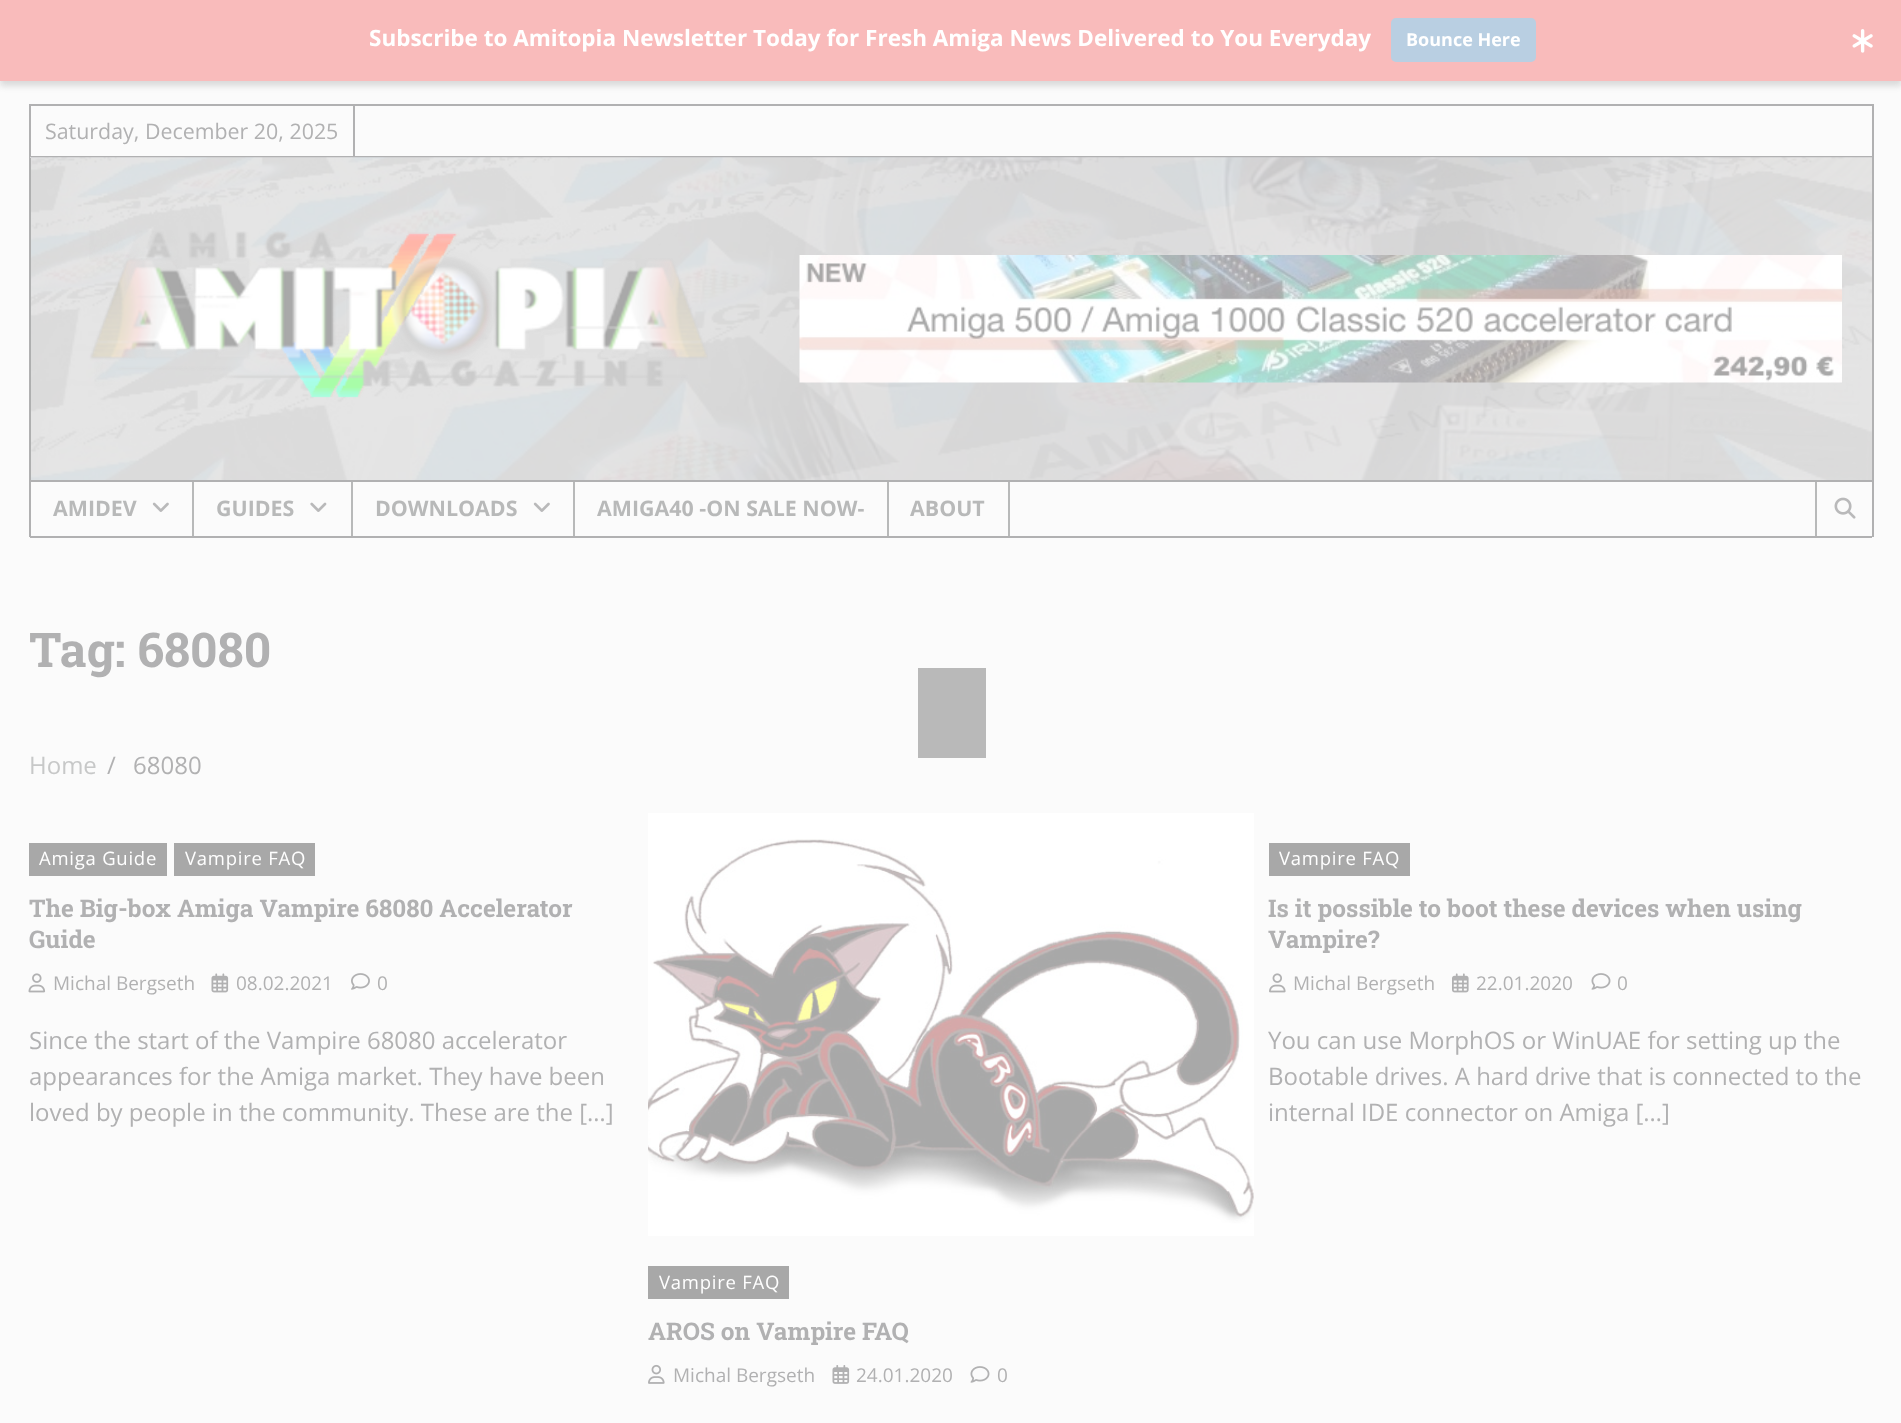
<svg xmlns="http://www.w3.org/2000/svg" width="1901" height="1423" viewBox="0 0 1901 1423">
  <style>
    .t1 { font: bold 22.5px Open Sans; fill: #fff; }
    .t2 { font: bold 18px Open Sans; fill: #fff; }
    .t3 { font: 21.4px Open Sans; fill: #b1b1b2; }
    .t4 { font: bold 21.4px Open Sans; fill: #b8b9b9; }
    .t5 { font: bold 48px Roboto Slab; fill: #b1b1b2; }
    .t6 { font: 24px Open Sans; fill: #c7c8c8; }
    .t7 { font: 24px Open Sans; fill: #b1b1b2; }
    .t8 { font: 18.5px Open Sans; letter-spacing: 0.75px; fill: #fff; }
    .t9 { font: bold 24.4px Roboto Slab; fill: #b1b1b2; }
    .t10 { font: 19px Open Sans; fill: #b1b1b2; }
  </style>
  <rect width="100%" height="100%" fill="#fbfbfb"/>
  <rect x="0" y="5" width="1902" height="81" fill="#a8a8a866" filter="blur(3px)"/>
  <rect x="0" y="0" width="1901" height="81" fill="#f9bbbb"/>
  <text x="369" y="46" class="t1">Subscribe to Amitopia Newsletter Today for Fresh Amiga News Delivered to You Everyday</text>
  <rect x="1391" y="18" width="145" height="44" rx="5" fill="#b9cfe2"/>
  <text x="1406" y="46" class="t2">Bounce Here</text>
  <image x="1852" y="29" width="21" height="24" href="images/1.png"/>
  <rect x="29" y="104" width="1845" height="2" fill="#b1b1b2"/>
  <rect x="1872" y="104" width="2" height="433" fill="#b1b1b2"/>
  <rect x="29" y="104" width="2" height="54" fill="#b1b1b2"/>
  <rect x="353" y="105" width="2" height="53" fill="#b1b1b2"/>
  <text x="45" y="139" class="t3">Saturday, December 20, 2025</text>
  <rect x="30" y="156" width="1842" height="2" fill="#b1b1b2"/>
  <image x="30" y="157" width="1842" height="323" href="images/2.png"/>
  <rect x="29" y="158" width="1" height="322" fill="#b1b1b2"/>
  <rect x="30" y="158" width="1" height="322" fill="#aeafaf"/>
  <image x="89" y="230" width="619" height="168" href="images/3.png"/>
  <image x="799" y="255" width="1043" height="128" href="images/4.png"/>
  <rect x="29" y="480" width="2" height="57" fill="#b1b1b2"/>
  <rect x="192" y="480" width="2" height="57" fill="#b8b9b9"/>
  <rect x="351" y="480" width="2" height="57" fill="#b8b9b9"/>
  <rect x="573" y="480" width="2" height="57" fill="#b8b9b9"/>
  <rect x="887" y="480" width="2" height="56" fill="#b8b9b9"/>
  <rect x="1008" y="480" width="2" height="56" fill="#b8b9b9"/>
  <rect x="1815" y="480" width="2" height="57" fill="#b8b9b9"/>
  <rect x="30" y="480" width="1842" height="2" fill="#b1b1b2"/>
  <text x="53" y="516" class="t4">AMIDEV</text>
  <image x="152" y="502" width="17" height="10" href="images/5.png"/>
  <text x="216" y="516" class="t4">GUIDES</text>
  <image x="310" y="502" width="17" height="10" href="images/6.png"/>
  <text x="375" y="516" class="t4">DOWNLOADS</text>
  <image x="533" y="502" width="17" height="10" href="images/5.png"/>
  <text x="597" y="516" class="t4">AMIGA40 -ON SALE NOW-</text>
  <text x="910" y="516" class="t4">ABOUT</text>
  <image x="1834" y="497" width="22" height="22" href="images/7.png"/>
  <rect x="30" y="536" width="1842" height="2" fill="#b1b1b2"/>
  <text x="29" y="667" class="t5">Tag: 68080</text>
  <text x="29" y="774" class="t6">Home</text>
  <text x="107" y="774" class="t7">/</text>
  <text x="133" y="774" class="t7">68080</text>
  <rect x="29" y="843" width="138" height="33" fill="#a8a8a8"/>
  <text x="39" y="865" class="t8">Amiga Guide</text>
  <rect x="174" y="843" width="141" height="33" fill="#a8a8a8"/>
  <text x="185" y="865" class="t8">Vampire FAQ</text>
  <text x="29" y="917" class="t9">The Big-box Amiga Vampire 68080 Accelerator</text>
  <text x="29" y="948" class="t9">Guide</text>
  <image x="28" y="973" width="18" height="20" href="images/8.png"/>
  <text x="53" y="990" class="t10">Michal Bergseth</text>
  <image x="211" y="973" width="18" height="20" href="images/9.png"/>
  <text x="236" y="990" class="t10">08.02.2021</text>
  <image x="351" y="973" width="19" height="17" href="images/10.png"/>
  <text x="377" y="990" class="t10">0</text>
  <text x="29" y="1049" class="t7">Since the start of the Vampire 68080 accelerator</text>
  <text x="29" y="1085" class="t7">appearances for the Amiga market. They have been</text>
  <text x="29" y="1121" class="t7">loved by people in the community. These are the […]</text>
  <rect x="1269" y="843" width="141" height="33" fill="#a8a8a8"/>
  <text x="1279" y="865" class="t8">Vampire FAQ</text>
  <text x="1268" y="917" class="t9">Is it possible to boot these devices when using</text>
  <text x="1268" y="948" class="t9">Vampire?</text>
  <image x="1269" y="973" width="17" height="20" href="images/11.png"/>
  <text x="1293" y="990" class="t10">Michal Bergseth</text>
  <image x="1452" y="973" width="17" height="20" href="images/12.png"/>
  <text x="1476" y="990" class="t10">22.01.2020</text>
  <image x="1591" y="973" width="20" height="17" href="images/13.png"/>
  <text x="1617" y="990" class="t10">0</text>
  <text x="1268" y="1049" class="t7">You can use MorphOS or WinUAE for setting up the</text>
  <text x="1268" y="1085" class="t7">Bootable drives. A hard drive that is connected to the</text>
  <text x="1268" y="1121" class="t7">internal IDE connector on Amiga […]</text>
  <image x="648" y="813" width="606" height="423" href="images/14.png"/>
  <rect x="648" y="1266" width="141" height="33" fill="#a8a8a8"/>
  <text x="659" y="1289" class="t8">Vampire FAQ</text>
  <text x="648" y="1340" class="t9">AROS on Vampire FAQ</text>
  <image x="648" y="1364" width="17" height="20" href="images/15.png"/>
  <text x="673" y="1382" class="t10">Michal Bergseth</text>
  <image x="832" y="1365" width="18" height="19" href="images/16.png"/>
  <text x="856" y="1382" class="t10">24.01.2020</text>
  <image x="970" y="1366" width="20" height="17" href="images/13.png"/>
  <text x="997" y="1382" class="t10">0</text>
  <rect x="918" y="668" width="68" height="90" fill="#b9b9b9"/>
</svg>
